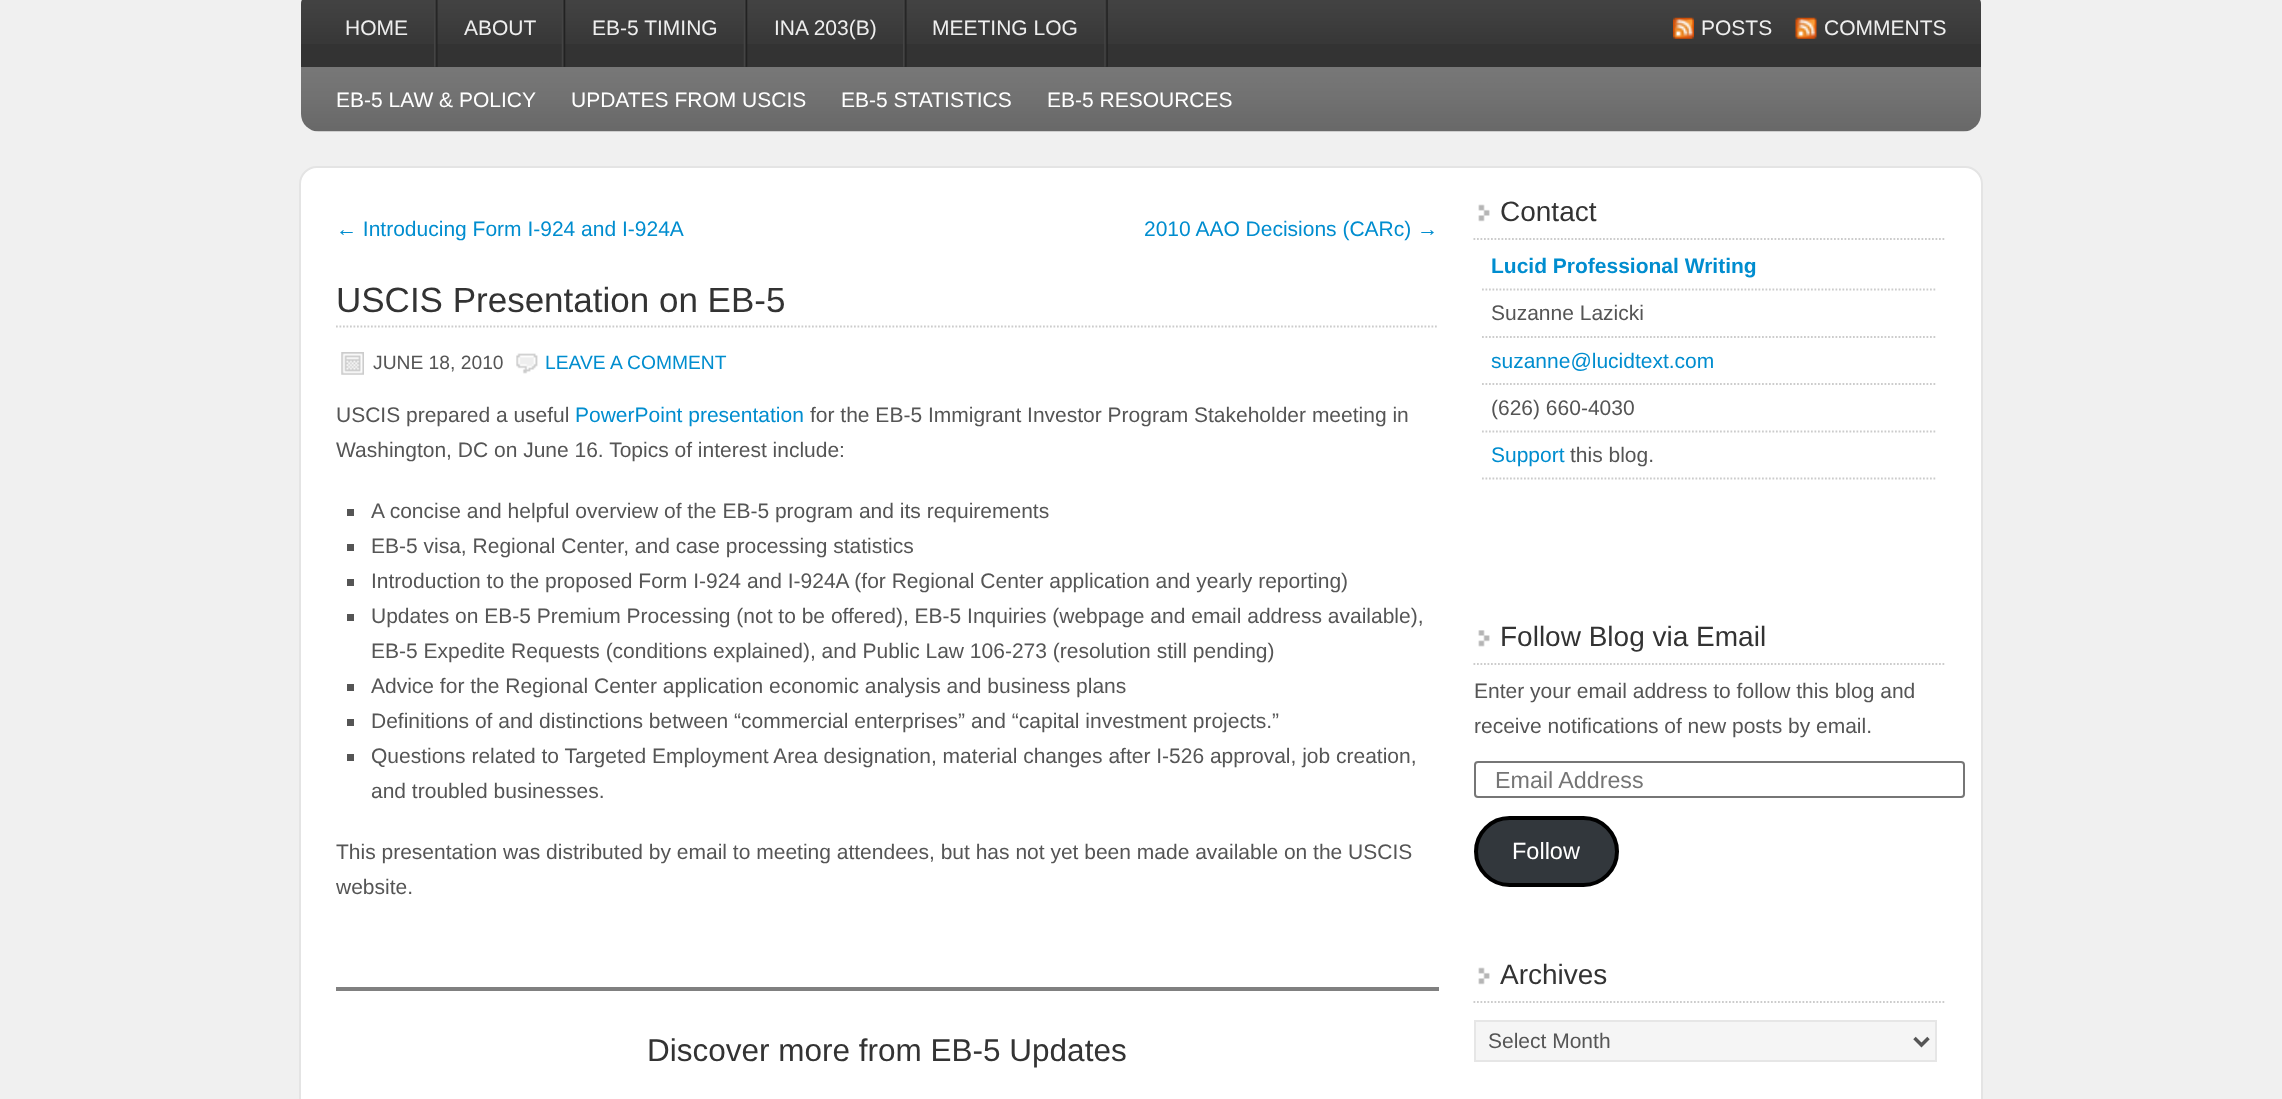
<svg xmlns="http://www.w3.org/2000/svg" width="2282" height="1099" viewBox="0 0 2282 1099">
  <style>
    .t1 { font: 21px Liberation Sans; fill: #eee; }
    .t2 { font: 21px Liberation Sans; fill: #fff; }
    .t3 { font: 21px Liberation Sans; fill: #008dcf; }
    .t4 { font: 35px Liberation Sans; fill: #333; }
    .t5 { font: 19.25px Liberation Sans; fill: #555; }
    .t6 { font: 19.25px Liberation Sans; fill: #008dcf; }
    .t7 { font: 21px Liberation Sans; fill: #555; }
    .t8 { font: 31.5px Liberation Sans; fill: #333; }
    .t9 { font: 28px Liberation Sans; fill: #333; }
    .t10 { font: bold 21px Liberation Sans; fill: #008dcf; }
    .t11 { font: 23.25px Liberation Sans; fill: #757575; }
    .t12 { font: 23.5px Liberation Sans; fill: #fff; }
  </style>
  <rect width="100%" height="100%" fill="#f0f0f0"/>
  <path d="M319-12H1963C1973-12 1981-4 1981 6V67H301V6C301-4 309-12 319-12Z" fill="#333"/>
  <image x="301" y="0" width="1680" height="44" href="images/1.png"/>
  <image x="434" y="0" width="4" height="67" href="images/2.png"/>
  <text x="345" y="35" class="t1">HOME</text>
  <image x="561" y="0" width="5" height="67" href="images/3.png"/>
  <text x="464" y="35" class="t1">ABOUT</text>
  <image x="743" y="0" width="5" height="67" href="images/3.png"/>
  <text x="592" y="35" class="t1">EB-5 TIMING</text>
  <image x="903" y="0" width="4" height="67" href="images/2.png"/>
  <text x="774" y="35" class="t1">INA 203(B)</text>
  <image x="1104" y="0" width="4" height="67" href="images/4.png"/>
  <text x="932" y="35" class="t1">MEETING LOG</text>
  <image x="1673" y="17" width="21" height="22" href="images/5.png"/>
  <text x="1701" y="35" class="t1">POSTS</text>
  <image x="1795" y="17" width="22" height="22" href="images/6.png"/>
  <text x="1824" y="35" class="t1">COMMENTS</text>
  <image x="301" y="67" width="1680" height="65" href="images/7.png"/>
  <text x="336" y="107" class="t2">EB-5 LAW &amp; POLICY</text>
  <text x="571" y="107" class="t2">UPDATES FROM USCIS</text>
  <text x="841" y="107" class="t2">EB-5 STATISTICS</text>
  <text x="1047" y="107" class="t2">EB-5 RESOURCES</text>
  <rect x="300" y="167" width="1682" height="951" rx="17" fill="#fff" stroke="#e4e4e4" stroke-width="2"/>
  <text x="336" y="236" class="t3">← Introducing Form I-924 and I-924A</text>
  <text x="1144" y="236" class="t3">2010 AAO Decisions (CARc) →</text>
  <path d="M336 326.5H1438.5" fill="none" stroke="#ccc" stroke-width="1.8" stroke-dasharray="1.75 1.75"/>
  <text x="336" y="312" class="t4">USCIS Presentation on EB-5</text>
  <image x="341" y="352" width="23" height="23" href="images/8.png"/>
  <text x="373" y="369" class="t5">JUNE 18, 2010</text>
  <image x="516" y="353" width="22" height="21" href="images/9.png"/>
  <text x="545" y="369" class="t6">LEAVE A COMMENT</text>
  <text x="336" y="422" class="t7">USCIS prepared a useful</text>
  <text x="575" y="422" class="t3">PowerPoint presentation</text>
  <text x="810" y="422" class="t7">for the EB-5 Immigrant Investor Program Stakeholder meeting in</text>
  <text x="336" y="457" class="t7">Washington, DC on June 16. Topics of interest include:</text>
  <rect x="347" y="509" width="7" height="7" fill="#555"/>
  <text x="371" y="518" class="t7">A concise and helpful overview of the EB-5 program and its requirements</text>
  <rect x="347" y="544" width="7" height="7" fill="#555"/>
  <text x="371" y="553" class="t7">EB-5 visa, Regional Center, and case processing statistics</text>
  <rect x="347" y="579" width="7" height="7" fill="#555"/>
  <text x="371" y="588" class="t7">Introduction to the proposed Form I-924 and I-924A (for Regional Center application and yearly reporting)</text>
  <rect x="347" y="614" width="7" height="7" fill="#555"/>
  <text x="371" y="623" class="t7">Updates on EB-5 Premium Processing (not to be offered), EB-5 Inquiries (webpage and email address available),</text>
  <text x="371" y="658" class="t7">EB-5 Expedite Requests (conditions explained), and Public Law 106-273 (resolution still pending)</text>
  <rect x="347" y="684" width="7" height="7" fill="#555"/>
  <text x="371" y="693" class="t7">Advice for the Regional Center application economic analysis and business plans</text>
  <rect x="347" y="719" width="7" height="7" fill="#555"/>
  <text x="371" y="728" class="t7">Definitions of and distinctions between “commercial enterprises” and “capital investment projects.”</text>
  <rect x="347" y="754" width="7" height="7" fill="#555"/>
  <text x="371" y="763" class="t7">Questions related to Targeted Employment Area designation, material changes after I-526 approval, job creation,</text>
  <text x="371" y="798" class="t7">and troubled businesses.</text>
  <text x="336" y="859" class="t7">This presentation was distributed by email to meeting attendees, but has not yet been made available on the USCIS</text>
  <text x="336" y="894" class="t7">website.</text>
  <rect x="336" y="987" width="1103" height="4" fill="#808080"/>
  <text x="647" y="1061" class="t8">Discover more from EB-5 Updates</text>
  <image x="1478" y="204" width="12" height="18" href="images/10.png"/>
  <path d="M1473.5 239H1946" fill="none" stroke="#ccc" stroke-width="1.8" stroke-dasharray="1.75 1.75"/>
  <text x="1500" y="221" class="t9">Contact</text>
  <path d="M1482 289.5H1937" fill="none" stroke="#ccc" stroke-width="1.8" stroke-dasharray="1.75 1.75"/>
  <text x="1491" y="273" class="t10">Lucid Professional Writing</text>
  <path d="M1482 337H1937" fill="none" stroke="#ccc" stroke-width="1.8" stroke-dasharray="1.75 1.75"/>
  <text x="1491" y="320" class="t7">Suzanne Lazicki</text>
  <path d="M1482 384H1937" fill="none" stroke="#ccc" stroke-width="1.8" stroke-dasharray="1.75 1.75"/>
  <text x="1491" y="368" class="t3">suzanne@lucidtext.com</text>
  <path d="M1482 431.5H1937" fill="none" stroke="#ccc" stroke-width="1.8" stroke-dasharray="1.75 1.75"/>
  <text x="1491" y="415" class="t7">(626) 660-4030</text>
  <path d="M1482 478.5H1937" fill="none" stroke="#ccc" stroke-width="1.8" stroke-dasharray="1.75 1.75"/>
  <text x="1491" y="462" class="t3">Support</text>
  <text x="1570" y="462" class="t7">this blog.</text>
  <image x="1478" y="630" width="12" height="17" href="images/11.png"/>
  <path d="M1473.5 664H1946" fill="none" stroke="#ccc" stroke-width="1.8" stroke-dasharray="1.75 1.75"/>
  <text x="1500" y="646" class="t9">Follow Blog via Email</text>
  <text x="1474" y="698" class="t7">Enter your email address to follow this blog and</text>
  <text x="1474" y="733" class="t7">receive notifications of new posts by email.</text>
  <rect x="1475" y="762" width="489" height="35" rx="3" fill="none" stroke="#767676" stroke-width="2"/>
  <text x="1495" y="788" class="t11">Email Address</text>
  <rect x="1476" y="818" width="141" height="67" rx="33.5" fill="#32373c" stroke="#000" stroke-width="4"/>
  <text x="1512" y="859" class="t12">Follow</text>
  <image x="1478" y="967" width="12" height="18" href="images/10.png"/>
  <path d="M1473.5 1002H1946" fill="none" stroke="#ccc" stroke-width="1.8" stroke-dasharray="1.75 1.75"/>
  <text x="1500" y="984" class="t9">Archives</text>
  <rect x="1475" y="1021" width="461" height="40" fill="#f5f5f5" stroke="#e6e6e6" stroke-width="2"/>
  <path d="M1914.5 1038L1921.5 1045L1928.5 1038" fill="none" stroke="#555" stroke-width="3.5"/>
  <text x="1488" y="1048" class="t7">Select Month</text>
</svg>
